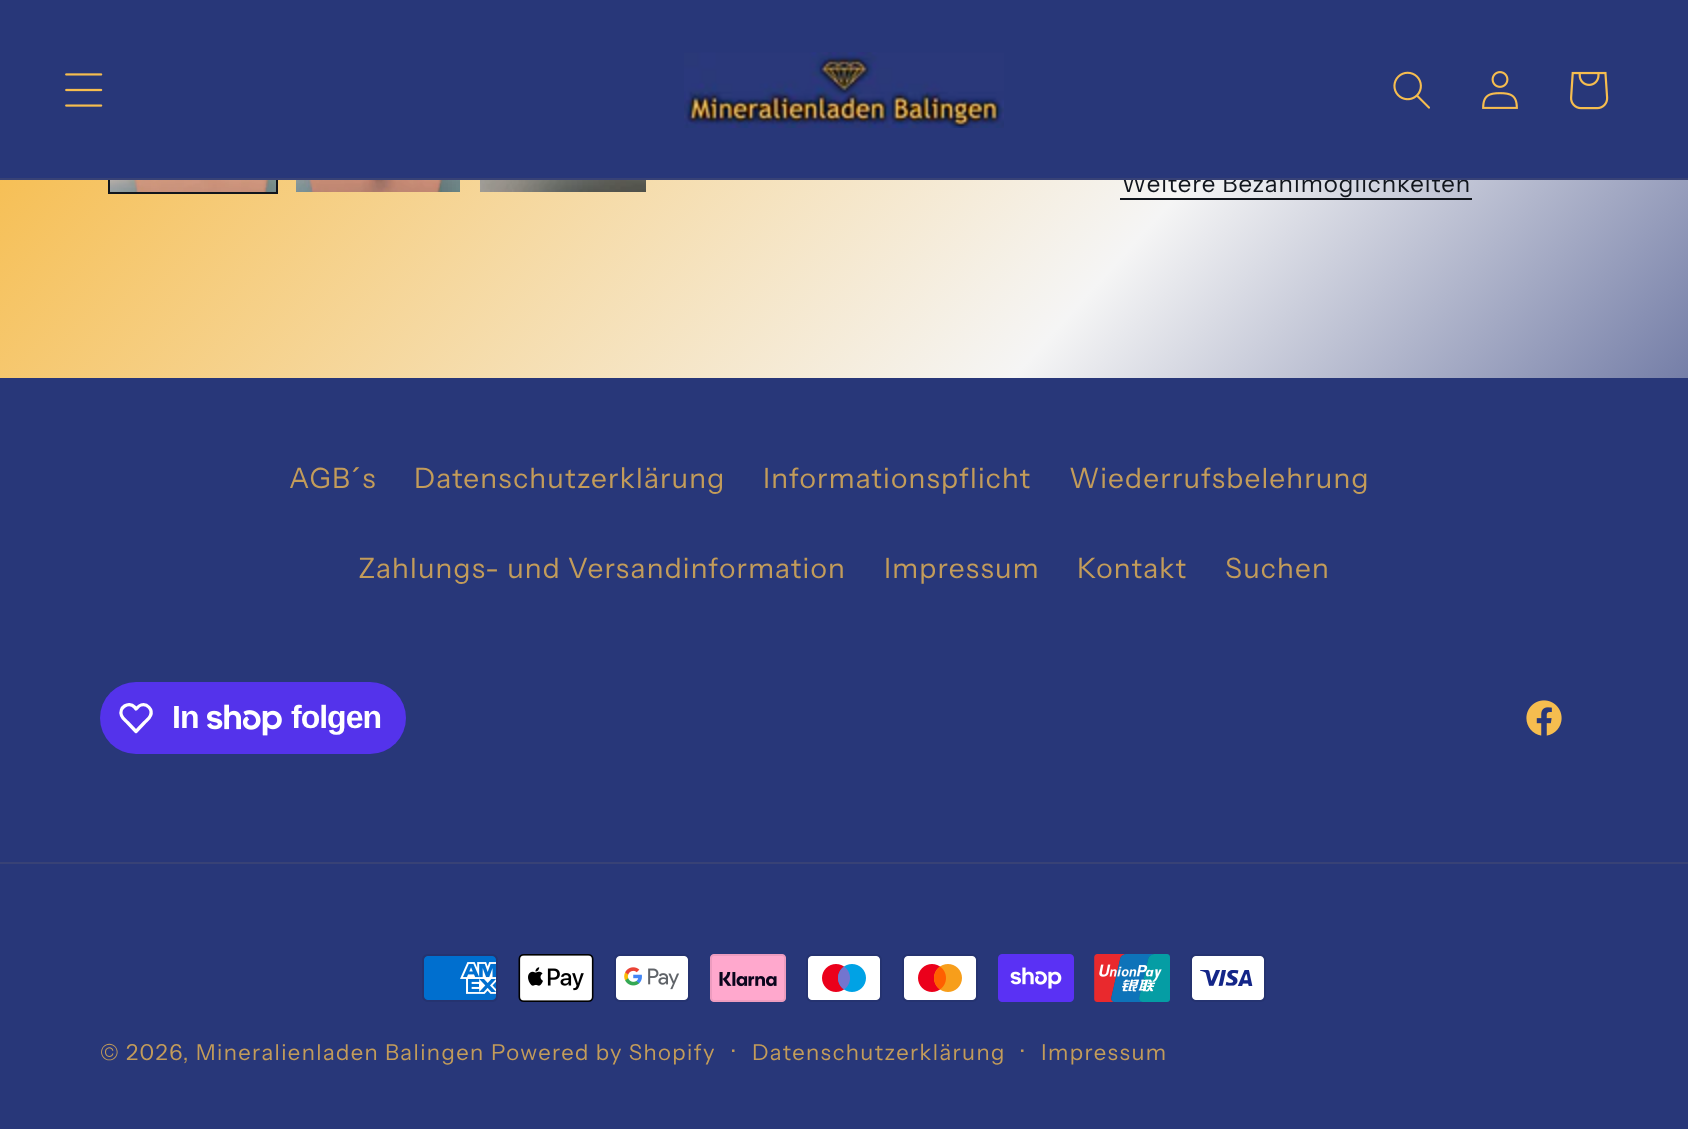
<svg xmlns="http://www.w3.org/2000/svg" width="1688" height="1129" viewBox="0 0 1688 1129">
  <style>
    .t1 { font: 24px Instrument Sans; letter-spacing: 1px; fill: #11151c; }
    .t2 { font: 28px Instrument Sans; letter-spacing: 1.2px; fill: #c39c5a; }
    .t3 { font: bold 32px Liberation Sans; letter-spacing: -1px; fill: #fff; }
    .t4 { font: 22px Instrument Sans; letter-spacing: 1.4px; fill: #c39c5a; }
    .t5 { font: 24px Instrument Sans; letter-spacing: 1.4px; fill: #c39c5a; }
  </style>
  <defs>
    <linearGradient id="g1" gradientUnits="userSpaceOnUse" x1="1591" y1="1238" x2="97" y2="-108"><stop offset="0.1" stop-color="#283779"/><stop offset="0.5" stop-color="#f5f5f5"/><stop offset="0.96" stop-color="#f6bd4f"/></linearGradient>
  </defs>
  <rect width="100%" height="100%" fill="#fff"/>
  <rect x="0" y="180" width="1688" height="198" fill="url(#g1)"/>
  <rect x="109" y="25" width="168" height="168" fill="none" stroke="#11151c" stroke-width="2"/>
  <text x="1121" y="192" class="t1">Weitere Bezahlmöglichkeiten</text>
  <rect x="0" y="0" width="1688" height="178" fill="#283779"/>
  <rect x="0" y="178" width="1688" height="2" fill="#384276"/>
  <image x="65" y="73" width="38" height="34" href="images/1.png"/>
  <image x="684" y="52" width="320" height="76" href="images/2.png"/>
  <image x="1393" y="71" width="37" height="38" href="images/3.png"/>
  <image x="1482" y="71" width="36" height="38" href="images/4.png"/>
  <image x="1570" y="71" width="39" height="39" href="images/5.png"/>
  <image x="110" y="180" width="166" height="12" href="images/6.png"/>
  <image x="296" y="180" width="164" height="12" href="images/7.png"/>
  <image x="480" y="180" width="166" height="12" href="images/8.png"/>
  <rect x="1120" y="198" width="352" height="2" fill="#11151c"/>
  <rect x="0" y="378" width="1688" height="751" fill="#283779"/>
  <text x="289" y="488" class="t2">AGB´s</text>
  <text x="414" y="488" class="t2">Datenschutzerklärung</text>
  <text x="763" y="488" class="t2">Informationspflicht</text>
  <text x="1069" y="488" class="t2">Wiederrufsbelehrung</text>
  <text x="358" y="578" class="t2">Zahlungs- und Versandinformation</text>
  <text x="884" y="578" class="t2">Impressum</text>
  <text x="1077" y="578" class="t2">Kontakt</text>
  <text x="1225" y="578" class="t2">Suchen</text>
  <rect x="100" y="682" width="306" height="72" rx="36" fill="#5433eb"/>
  <path d="M134.5 707L136 709C137.5 707.5 139 705.5 141 705C147 703 153 709.5 150.5 715.5C149.5 718.5 146.5 720.5 144.5 722.5L136 731.5L127.5 722.5C125.5 720.5 122.5 718.5 121.5 715.5C118.5 707.5 128.5 701 134.5 707Z" fill="none" stroke="#fff" stroke-width="3.3" stroke-linejoin="round"/>
  <text x="172" y="728" class="t3">In</text>
  <image x="207" y="704" width="75" height="32" href="images/9.png"/>
  <text x="291" y="728" class="t3">folgen</text>
  <image x="1526" y="700" width="36" height="36" href="images/10.png"/>
  <rect x="0" y="862" width="1688" height="2" fill="#384276"/>
  <image x="422" y="954" width="76" height="48" href="images/11.png"/>
  <image x="518" y="954" width="76" height="48" href="images/12.png"/>
  <image x="614" y="954" width="76" height="48" href="images/13.png"/>
  <image x="710" y="954" width="76" height="48" href="images/14.png"/>
  <image x="806" y="954" width="76" height="48" href="images/15.png"/>
  <image x="902" y="954" width="76" height="48" href="images/16.png"/>
  <image x="998" y="954" width="76" height="48" href="images/17.png"/>
  <image x="1094" y="954" width="76" height="48" href="images/18.png"/>
  <image x="1190" y="954" width="76" height="48" href="images/19.png"/>
  <text x="100" y="1060" class="t4">© 2026, Mineralienladen Balingen</text>
  <text x="491" y="1060" class="t4">Powered by Shopify</text>
  <text x="732" y="1060" class="t5">·</text>
  <text x="752" y="1060" class="t4">Datenschutzerklärung</text>
  <text x="1021" y="1060" class="t5">·</text>
  <text x="1041" y="1060" class="t4">Impressum</text>
</svg>
